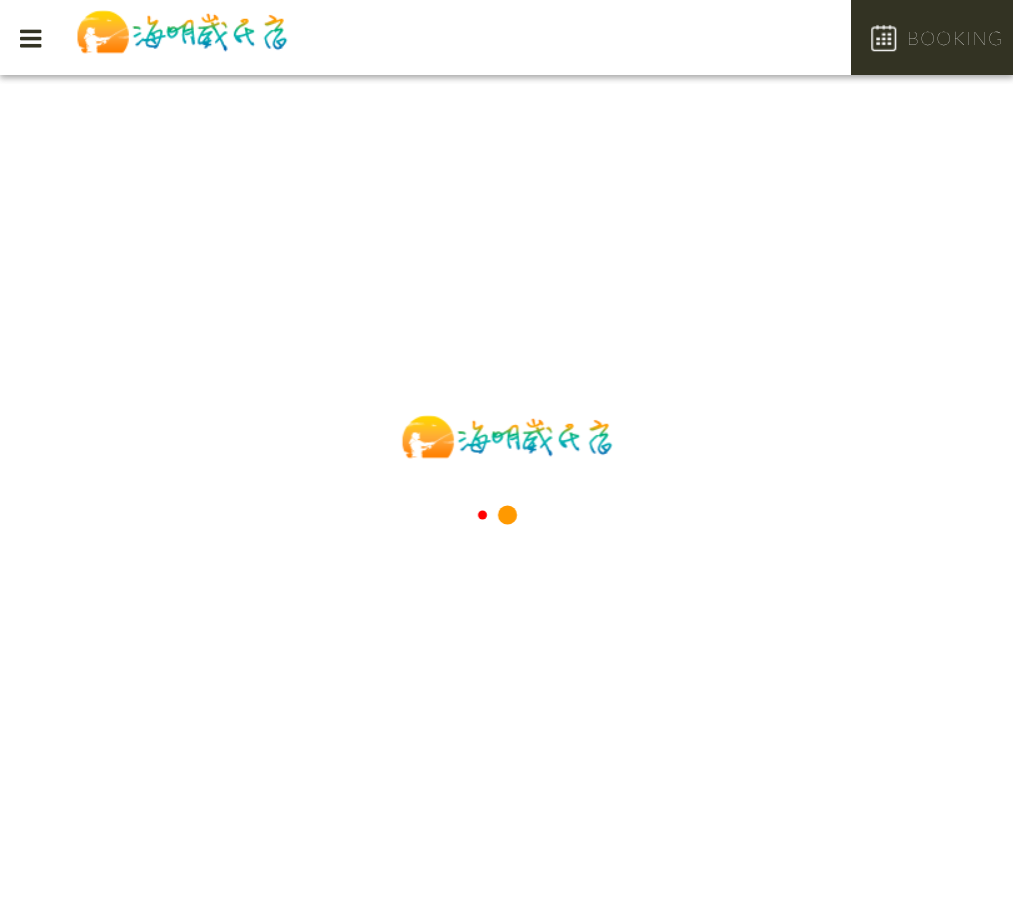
<svg xmlns="http://www.w3.org/2000/svg" width="1013" height="912" viewBox="0 0 1013 912">
  <style>
    .t1 { font: 100 18.75px Lato; letter-spacing: 1.25px; fill: #fff; }
  </style>
  <defs>
    <clipPath id="clip1"><rect x="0" y="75" width="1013" height="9"/></clipPath>
  </defs>
  <rect width="100%" height="100%" fill="#fff"/>
  <g clip-path="url(#clip1)">
    <rect x="0" y="3" width="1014" height="75" fill="#7e7e7ead" filter="blur(3px)"/>
  </g>
  <image x="20" y="29" width="22" height="19" href="images/1.png"/>
  <image x="77" y="10" width="211" height="44" href="images/2.png"/>
  <rect x="851" y="0" width="162" height="75" fill="#333323"/>
  <image x="871" y="24" width="26" height="28" href="images/3.png"/>
  <text x="907" y="45" class="t1">BOOKING</text>
  <image x="401" y="415" width="212" height="44" href="images/4.png"/>
  <image x="477" y="505" width="41" height="20" href="images/5.png"/>
</svg>
